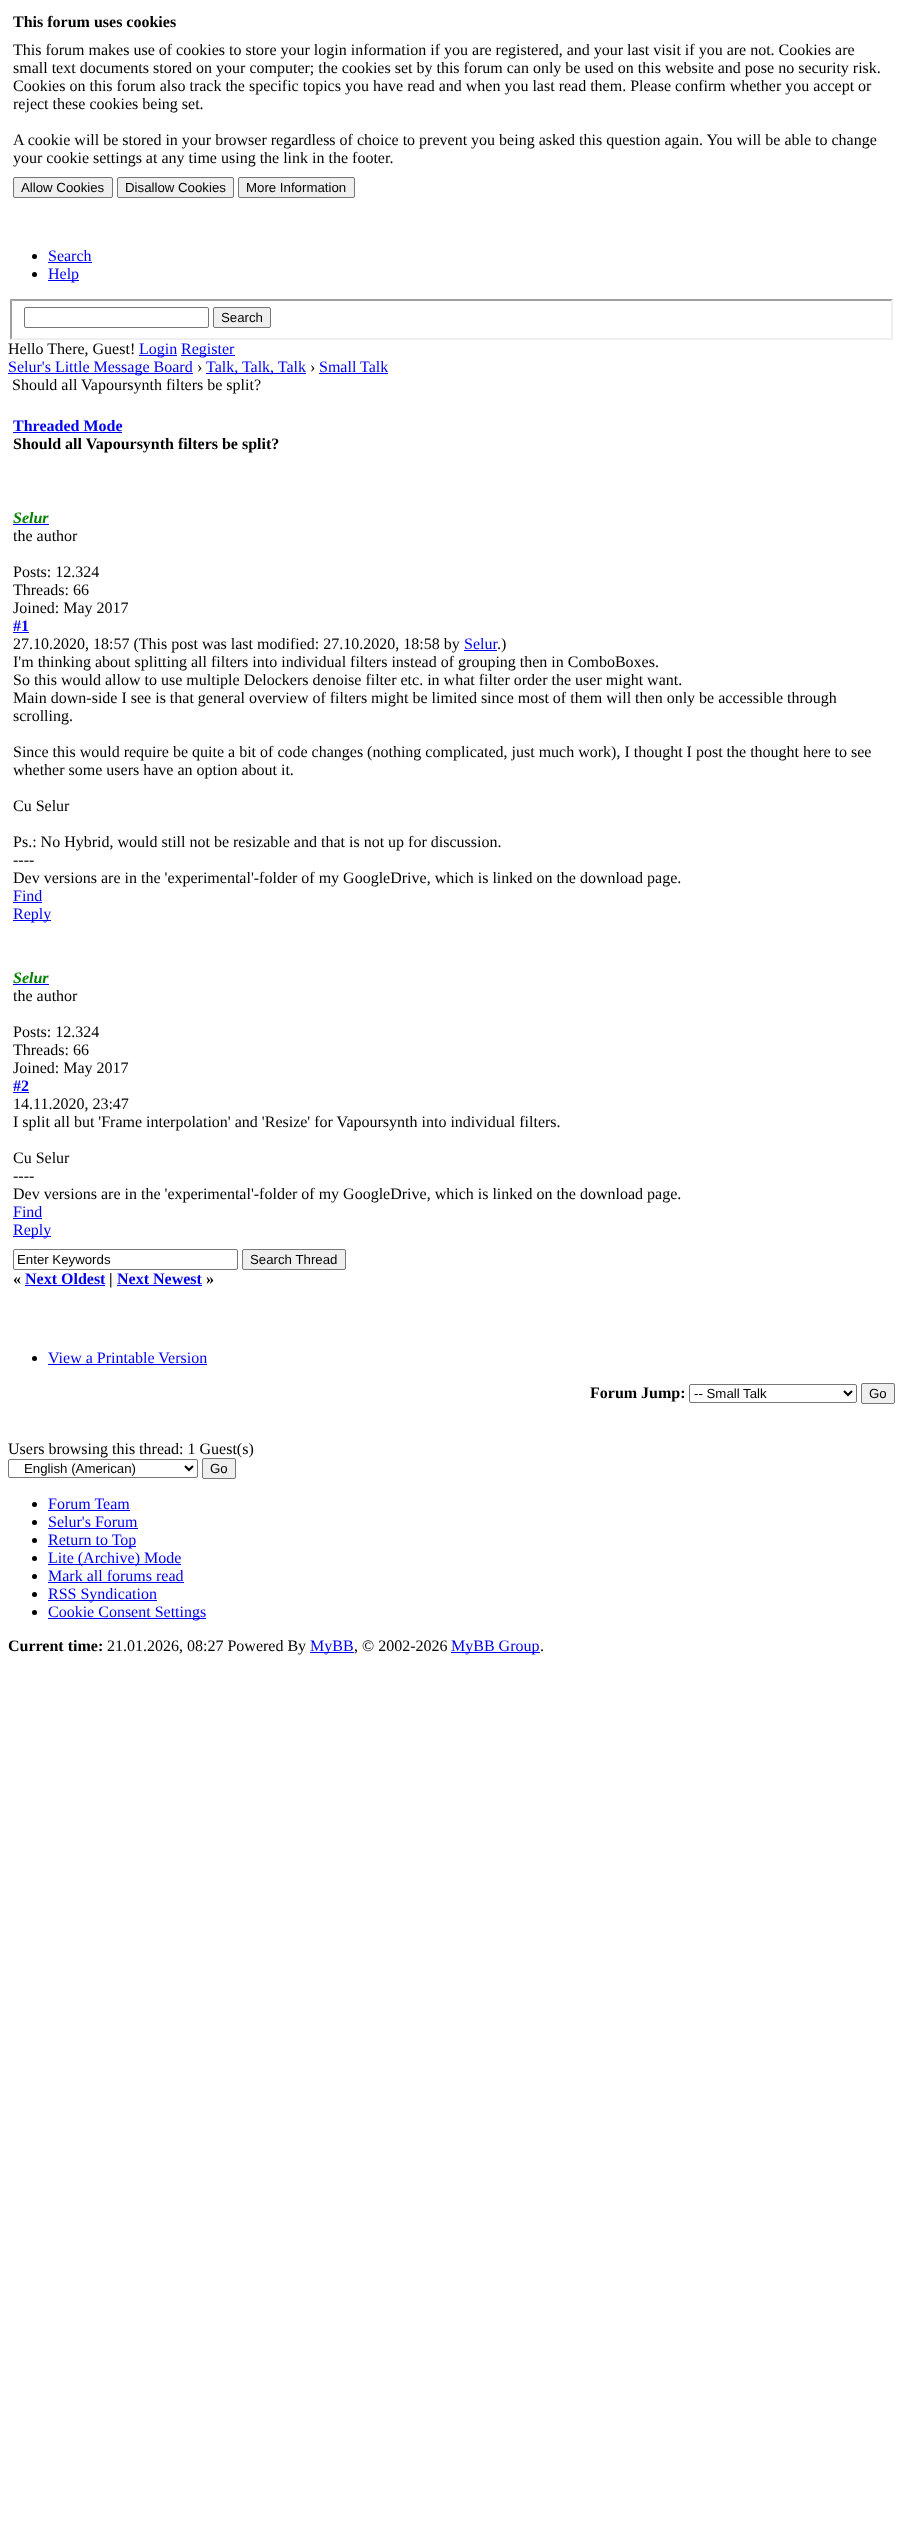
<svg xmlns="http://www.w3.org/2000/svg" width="903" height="2530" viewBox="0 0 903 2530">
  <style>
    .t1 { font: bold 16px Liberation Serif; fill: #000; }
    .t2 { font: 16px Liberation Serif; fill: #000; }
    .t3 { font: 13.25px Liberation Sans; fill: #000; }
    .t4 { font: 16px Liberation Serif; fill: #00e; }
    .t5 { font: bold 16px Liberation Serif; fill: #00e; }
    .t6 { font: italic bold 16px Liberation Serif; fill: #008000; }
  </style>
  <rect width="100%" height="100%" fill="#fff"/>
  <text x="13" y="27" class="t1">This forum uses cookies</text>
  <text x="13" y="55" class="t2">This forum makes use of cookies to store your login information if you are registered, and your last visit if you are not. Cookies are</text>
  <text x="13" y="73" class="t2">small text documents stored on your computer; the cookies set by this forum can only be used on this website and pose no security risk.</text>
  <text x="13" y="91" class="t2">Cookies on this forum also track the specific topics you have read and when you last read them. Please confirm whether you accept or</text>
  <text x="13" y="109" class="t2">reject these cookies being set.</text>
  <text x="13" y="145" class="t2">A cookie will be stored in your browser regardless of choice to prevent you being asked this question again. You will be able to change</text>
  <text x="13" y="163" class="t2">your cookie settings at any time using the link in the footer.</text>
  <rect x="13.5" y="177.5" width="99" height="20" rx="1.5" fill="#efefef" stroke="#767676"/>
  <text x="21" y="192" class="t3">Allow Cookies</text>
  <rect x="117.5" y="177.5" width="116" height="20" rx="1.5" fill="#efefef" stroke="#767676"/>
  <text x="125" y="192" class="t3">Disallow Cookies</text>
  <rect x="238.5" y="177.5" width="116" height="20" rx="1.5" fill="#efefef" stroke="#767676"/>
  <text x="246" y="192" class="t3">More Information</text>
  <circle cx="34.5" cy="256.5" r="2.5" fill="#000"/>
  <text x="48" y="261" class="t4">Search</text>
  <rect x="48" y="262" width="44" height="1" fill="#00e"/>
  <circle cx="34.5" cy="274.5" r="2.5" fill="#000"/>
  <rect x="48" y="280" width="31" height="1" fill="#00e"/>
  <text x="48" y="279" class="t4">Help</text>
  <path d="M10 299H893L891 301H12Z" fill="#9f9f9f"/>
  <path d="M893 299V340L891 338V301Z" fill="#efefef"/>
  <path d="M893 340H10L12 338H891Z" fill="#efefef"/>
  <path d="M10 340V299L12 301V338Z" fill="#9f9f9f"/>
  <rect x="24.5" y="307.5" width="184" height="20" rx="1.5" fill="none" stroke="#767676"/>
  <rect x="213.5" y="307.5" width="57" height="20" rx="1.5" fill="#efefef" stroke="#767676"/>
  <text x="221" y="322" class="t3">Search</text>
  <text x="8" y="354" class="t2">Hello There, Guest!</text>
  <rect x="139" y="355" width="38" height="1" fill="#00e"/>
  <text x="139" y="354" class="t4">Login</text>
  <rect x="181" y="355" width="54" height="1" fill="#00e"/>
  <text x="181" y="354" class="t4">Register</text>
  <rect x="8" y="373" width="185" height="1" fill="#00e"/>
  <text x="8" y="372" class="t4">Selur's Little Message Board</text>
  <text x="197" y="372" class="t2">›</text>
  <rect x="206" y="373" width="100" height="1" fill="#00e"/>
  <text x="206" y="372" class="t4">Talk, Talk, Talk</text>
  <text x="310" y="372" class="t2">›</text>
  <text x="319" y="372" class="t4">Small Talk</text>
  <rect x="319" y="373" width="69" height="1" fill="#00e"/>
  <text x="12" y="390" class="t2">Should all Vapoursynth filters be split?</text>
  <text x="13" y="431" class="t5">Threaded Mode</text>
  <rect x="13" y="432" width="109" height="1" fill="#00e"/>
  <text x="13" y="449" class="t1">Should all Vapoursynth filters be split?</text>
  <text x="13" y="523" class="t6">Selur</text>
  <rect x="13" y="524" width="36" height="1" fill="#00e"/>
  <text x="13" y="541" class="t2">the author</text>
  <text x="13" y="577" class="t2">Posts: 12.324</text>
  <text x="13" y="595" class="t2">Threads: 66</text>
  <text x="13" y="613" class="t2">Joined: May 2017</text>
  <text x="13" y="631" class="t5">#1</text>
  <rect x="13" y="632" width="16" height="1" fill="#00e"/>
  <text x="13" y="649" class="t2">27.10.2020, 18:57 (This post was last modified: 27.10.2020, 18:58 by</text>
  <text x="464" y="649" class="t4">Selur</text>
  <text x="497" y="649" class="t2">.)</text>
  <rect x="464" y="650" width="33" height="1" fill="#00e"/>
  <text x="13" y="667" class="t2">I'm thinking about splitting all filters into individual filters instead of grouping then in ComboBoxes.</text>
  <text x="13" y="685" class="t2">So this would allow to use multiple Delockers denoise filter etc. in what filter order the user might want.</text>
  <text x="13" y="703" class="t2">Main down-side I see is that general overview of filters might be limited since most of them will then only be accessible through</text>
  <text x="13" y="721" class="t2">scrolling.</text>
  <text x="13" y="757" class="t2">Since this would require be quite a bit of code changes (nothing complicated, just much work), I thought I post the thought here to see</text>
  <text x="13" y="775" class="t2">whether some users have an option about it.</text>
  <text x="13" y="811" class="t2">Cu Selur</text>
  <text x="13" y="847" class="t2">Ps.: No Hybrid, would still not be resizable and that is not up for discussion.</text>
  <text x="13" y="865" class="t2">----</text>
  <text x="13" y="883" class="t2">Dev versions are in the 'experimental'-folder of my GoogleDrive, which is linked on the download page.</text>
  <text x="13" y="901" class="t4">Find</text>
  <rect x="13" y="902" width="29" height="1" fill="#00e"/>
  <rect x="13" y="920" width="38" height="1" fill="#00e"/>
  <text x="13" y="919" class="t4">Reply</text>
  <text x="13" y="983" class="t6">Selur</text>
  <rect x="13" y="984" width="36" height="1" fill="#00e"/>
  <text x="13" y="1001" class="t2">the author</text>
  <text x="13" y="1037" class="t2">Posts: 12.324</text>
  <text x="13" y="1055" class="t2">Threads: 66</text>
  <text x="13" y="1073" class="t2">Joined: May 2017</text>
  <text x="13" y="1091" class="t5">#2</text>
  <rect x="13" y="1092" width="16" height="1" fill="#00e"/>
  <text x="13" y="1109" class="t2">14.11.2020, 23:47</text>
  <text x="13" y="1127" class="t2">I split all but 'Frame interpolation' and 'Resize' for Vapoursynth into individual filters.</text>
  <text x="13" y="1163" class="t2">Cu Selur</text>
  <text x="13" y="1181" class="t2">----</text>
  <text x="13" y="1199" class="t2">Dev versions are in the 'experimental'-folder of my GoogleDrive, which is linked on the download page.</text>
  <text x="13" y="1217" class="t4">Find</text>
  <rect x="13" y="1218" width="29" height="1" fill="#00e"/>
  <rect x="13" y="1236" width="38" height="1" fill="#00e"/>
  <text x="13" y="1235" class="t4">Reply</text>
  <rect x="13.5" y="1249.5" width="224" height="20" rx="1.5" fill="none" stroke="#767676"/>
  <text x="17" y="1264" class="t3">Enter Keywords</text>
  <rect x="242.5" y="1249.5" width="103" height="20" rx="1.5" fill="#efefef" stroke="#767676"/>
  <text x="250" y="1264" class="t3">Search Thread</text>
  <text x="13" y="1284" class="t1">«</text>
  <rect x="25" y="1285" width="80" height="1" fill="#00e"/>
  <text x="25" y="1284" class="t5">Next Oldest</text>
  <text x="109" y="1284" class="t1">|</text>
  <text x="117" y="1284" class="t5">Next Newest</text>
  <rect x="117" y="1285" width="85" height="1" fill="#00e"/>
  <text x="206" y="1284" class="t1">»</text>
  <circle cx="34.5" cy="1358.5" r="2.5" fill="#000"/>
  <text x="48" y="1363" class="t4">View a Printable Version</text>
  <rect x="48" y="1364" width="159" height="1" fill="#00e"/>
  <text x="590" y="1398" class="t1">Forum Jump:</text>
  <rect x="689.5" y="1384.5" width="167" height="18" rx="1.5" fill="none" stroke="#767676"/>
  <path d="M844 1391L848 1395L852 1391" fill="none" stroke="#000" stroke-width="2"/>
  <text x="694" y="1398" class="t3">-- Small Talk</text>
  <rect x="861.5" y="1383.5" width="33" height="20" rx="1.5" fill="#efefef" stroke="#767676"/>
  <text x="869" y="1398" class="t3">Go</text>
  <text x="8" y="1454" class="t2">Users browsing this thread: 1 Guest(s)</text>
  <rect x="8.5" y="1459.5" width="189" height="18" rx="1.5" fill="none" stroke="#767676"/>
  <path d="M185 1466L189 1470L193 1466" fill="none" stroke="#000" stroke-width="2"/>
  <text x="24" y="1473" class="t3">English (American)</text>
  <rect x="202.5" y="1458.5" width="33" height="20" rx="1.5" fill="#efefef" stroke="#767676"/>
  <text x="210" y="1473" class="t3">Go</text>
  <circle cx="34.5" cy="1504.5" r="2.5" fill="#000"/>
  <text x="48" y="1509" class="t4">Forum Team</text>
  <rect x="48" y="1510" width="82" height="1" fill="#00e"/>
  <circle cx="34.5" cy="1522.5" r="2.5" fill="#000"/>
  <text x="48" y="1527" class="t4">Selur's Forum</text>
  <rect x="48" y="1528" width="90" height="1" fill="#00e"/>
  <circle cx="34.5" cy="1540.5" r="2.5" fill="#000"/>
  <rect x="48" y="1546" width="88" height="1" fill="#00e"/>
  <text x="48" y="1545" class="t4">Return to Top</text>
  <circle cx="34.5" cy="1558.5" r="2.5" fill="#000"/>
  <rect x="48" y="1564" width="133" height="1" fill="#00e"/>
  <text x="48" y="1563" class="t4">Lite (Archive) Mode</text>
  <circle cx="34.5" cy="1576.5" r="2.5" fill="#000"/>
  <text x="48" y="1581" class="t4">Mark all forums read</text>
  <rect x="48" y="1582" width="136" height="1" fill="#00e"/>
  <circle cx="34.5" cy="1594.5" r="2.5" fill="#000"/>
  <rect x="48" y="1600" width="109" height="1" fill="#00e"/>
  <text x="48" y="1599" class="t4">RSS Syndication</text>
  <circle cx="34.5" cy="1612.5" r="2.5" fill="#000"/>
  <rect x="48" y="1618" width="158" height="1" fill="#00e"/>
  <text x="48" y="1617" class="t4">Cookie Consent Settings</text>
  <text x="8" y="1651" class="t1">Current time:</text>
  <text x="107" y="1651" class="t2">21.01.2026, 08:27 Powered By</text>
  <rect x="310" y="1652" width="44" height="1" fill="#00e"/>
  <text x="310" y="1651" class="t4">MyBB</text>
  <text x="354" y="1651" class="t2">, © 2002-2026</text>
  <rect x="451" y="1652" width="89" height="1" fill="#00e"/>
  <text x="451" y="1651" class="t4">MyBB Group</text>
  <text x="540" y="1651" class="t2">.</text>
</svg>
